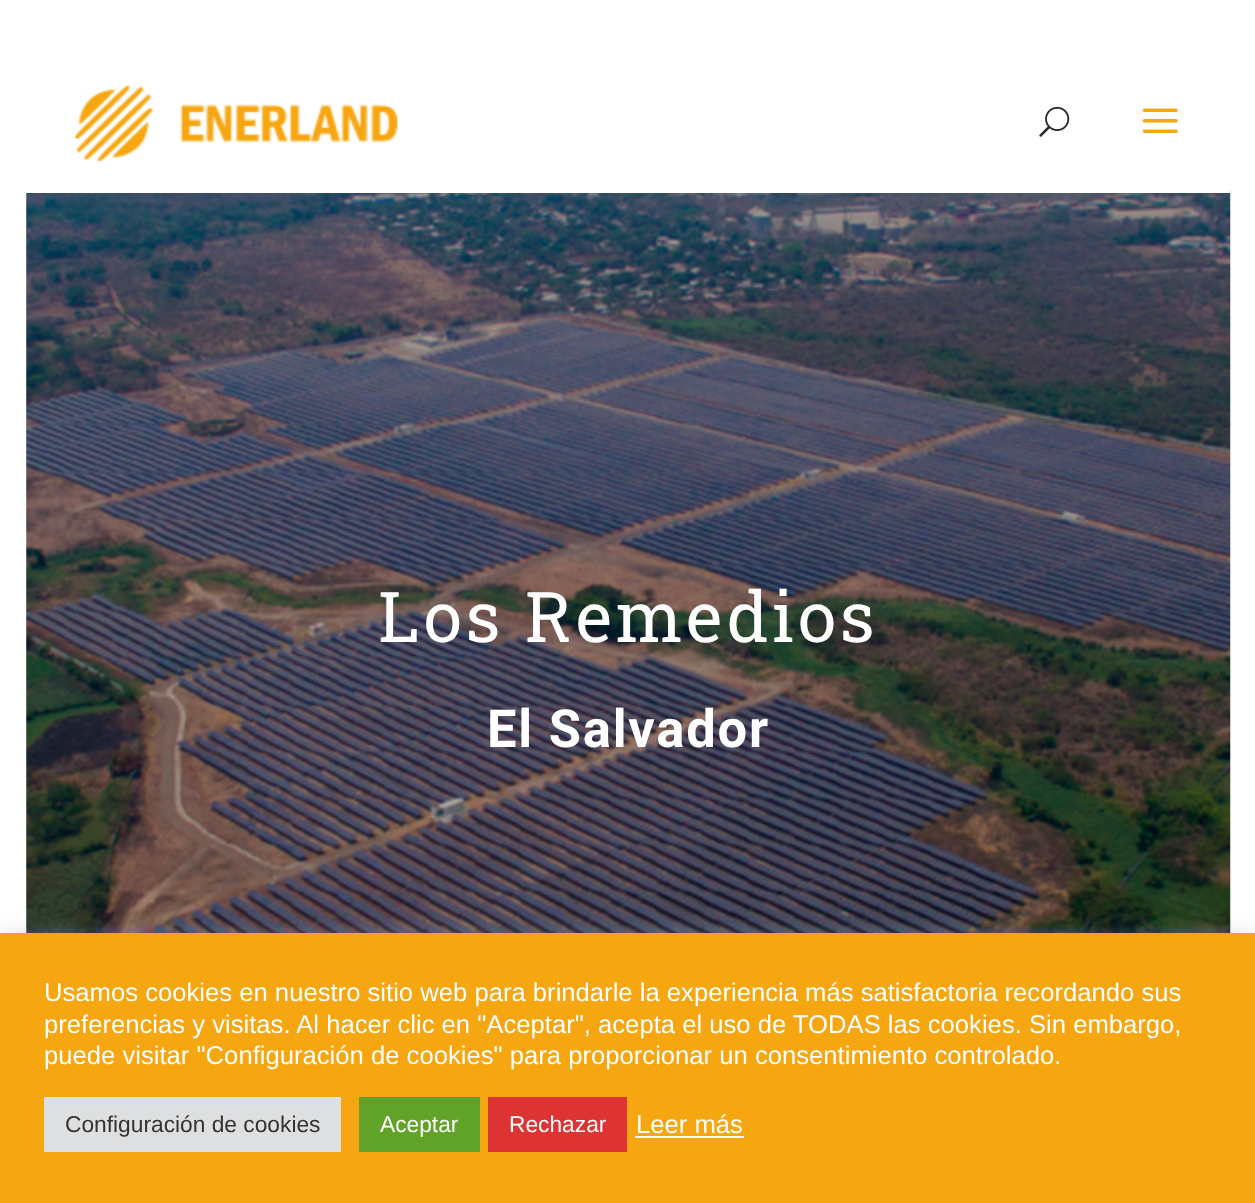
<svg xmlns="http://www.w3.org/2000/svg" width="1255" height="1203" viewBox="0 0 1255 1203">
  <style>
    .t1 { font: 70px Roboto Slab; letter-spacing: 3.5px; fill: #fff; }
    .t2 { font: bold 52.5px Roboto; letter-spacing: 1.75px; fill: #fff; }
    .t3 { font: 25.65px Liberation Sans; fill: #fff; }
    .t4 { font: 22.75px Liberation Sans; fill: #333; }
    .t5 { font: 22.75px Liberation Sans; fill: #fff; }
  </style>
  <rect width="100%" height="100%" fill="#fff"/>
  <image x="26" y="190" width="1205" height="743" href="images/4.png"/>
  <rect x="26" y="190" width="1204" height="3" fill="#fff"/>
  <image x="74" y="85" width="324" height="76" href="images/1.png"/>
  <image x="1039" y="106" width="31" height="31" href="images/2.png"/>
  <image x="1142" y="108" width="36" height="25" href="images/3.png"/>
  <text x="378" y="642" class="t1">Los Remedios</text>
  <text x="487" y="747" class="t2">El Salvador</text>
  <rect x="0" y="931" width="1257" height="271" fill="#acabab4d" filter="blur(9px)"/>
  <rect x="0" y="933" width="1255" height="270" fill="#f6a611"/>
  <text x="44" y="1001" class="t3">Usamos cookies en nuestro sitio web para brindarle la experiencia más satisfactoria recordando sus</text>
  <text x="44" y="1033" class="t3">preferencias y visitas. Al hacer clic en "Aceptar", acepta el uso de TODAS las cookies. Sin embargo,</text>
  <text x="44" y="1064" class="t3">puede visitar "Configuración de cookies" para proporcionar un consentimiento controlado.</text>
  <rect x="44" y="1097" width="297" height="55" fill="#dedfe0"/>
  <text x="65" y="1132" class="t4">Configuración de cookies</text>
  <rect x="359" y="1097" width="121" height="55" fill="#61a229"/>
  <text x="380" y="1132" class="t5">Aceptar</text>
  <rect x="488" y="1097" width="139" height="55" fill="#d33"/>
  <text x="509" y="1132" class="t5">Rechazar</text>
  <text x="636" y="1133" class="t3">Leer más</text>
  <rect x="635" y="1136" width="109" height="2" fill="#fff"/>
</svg>
